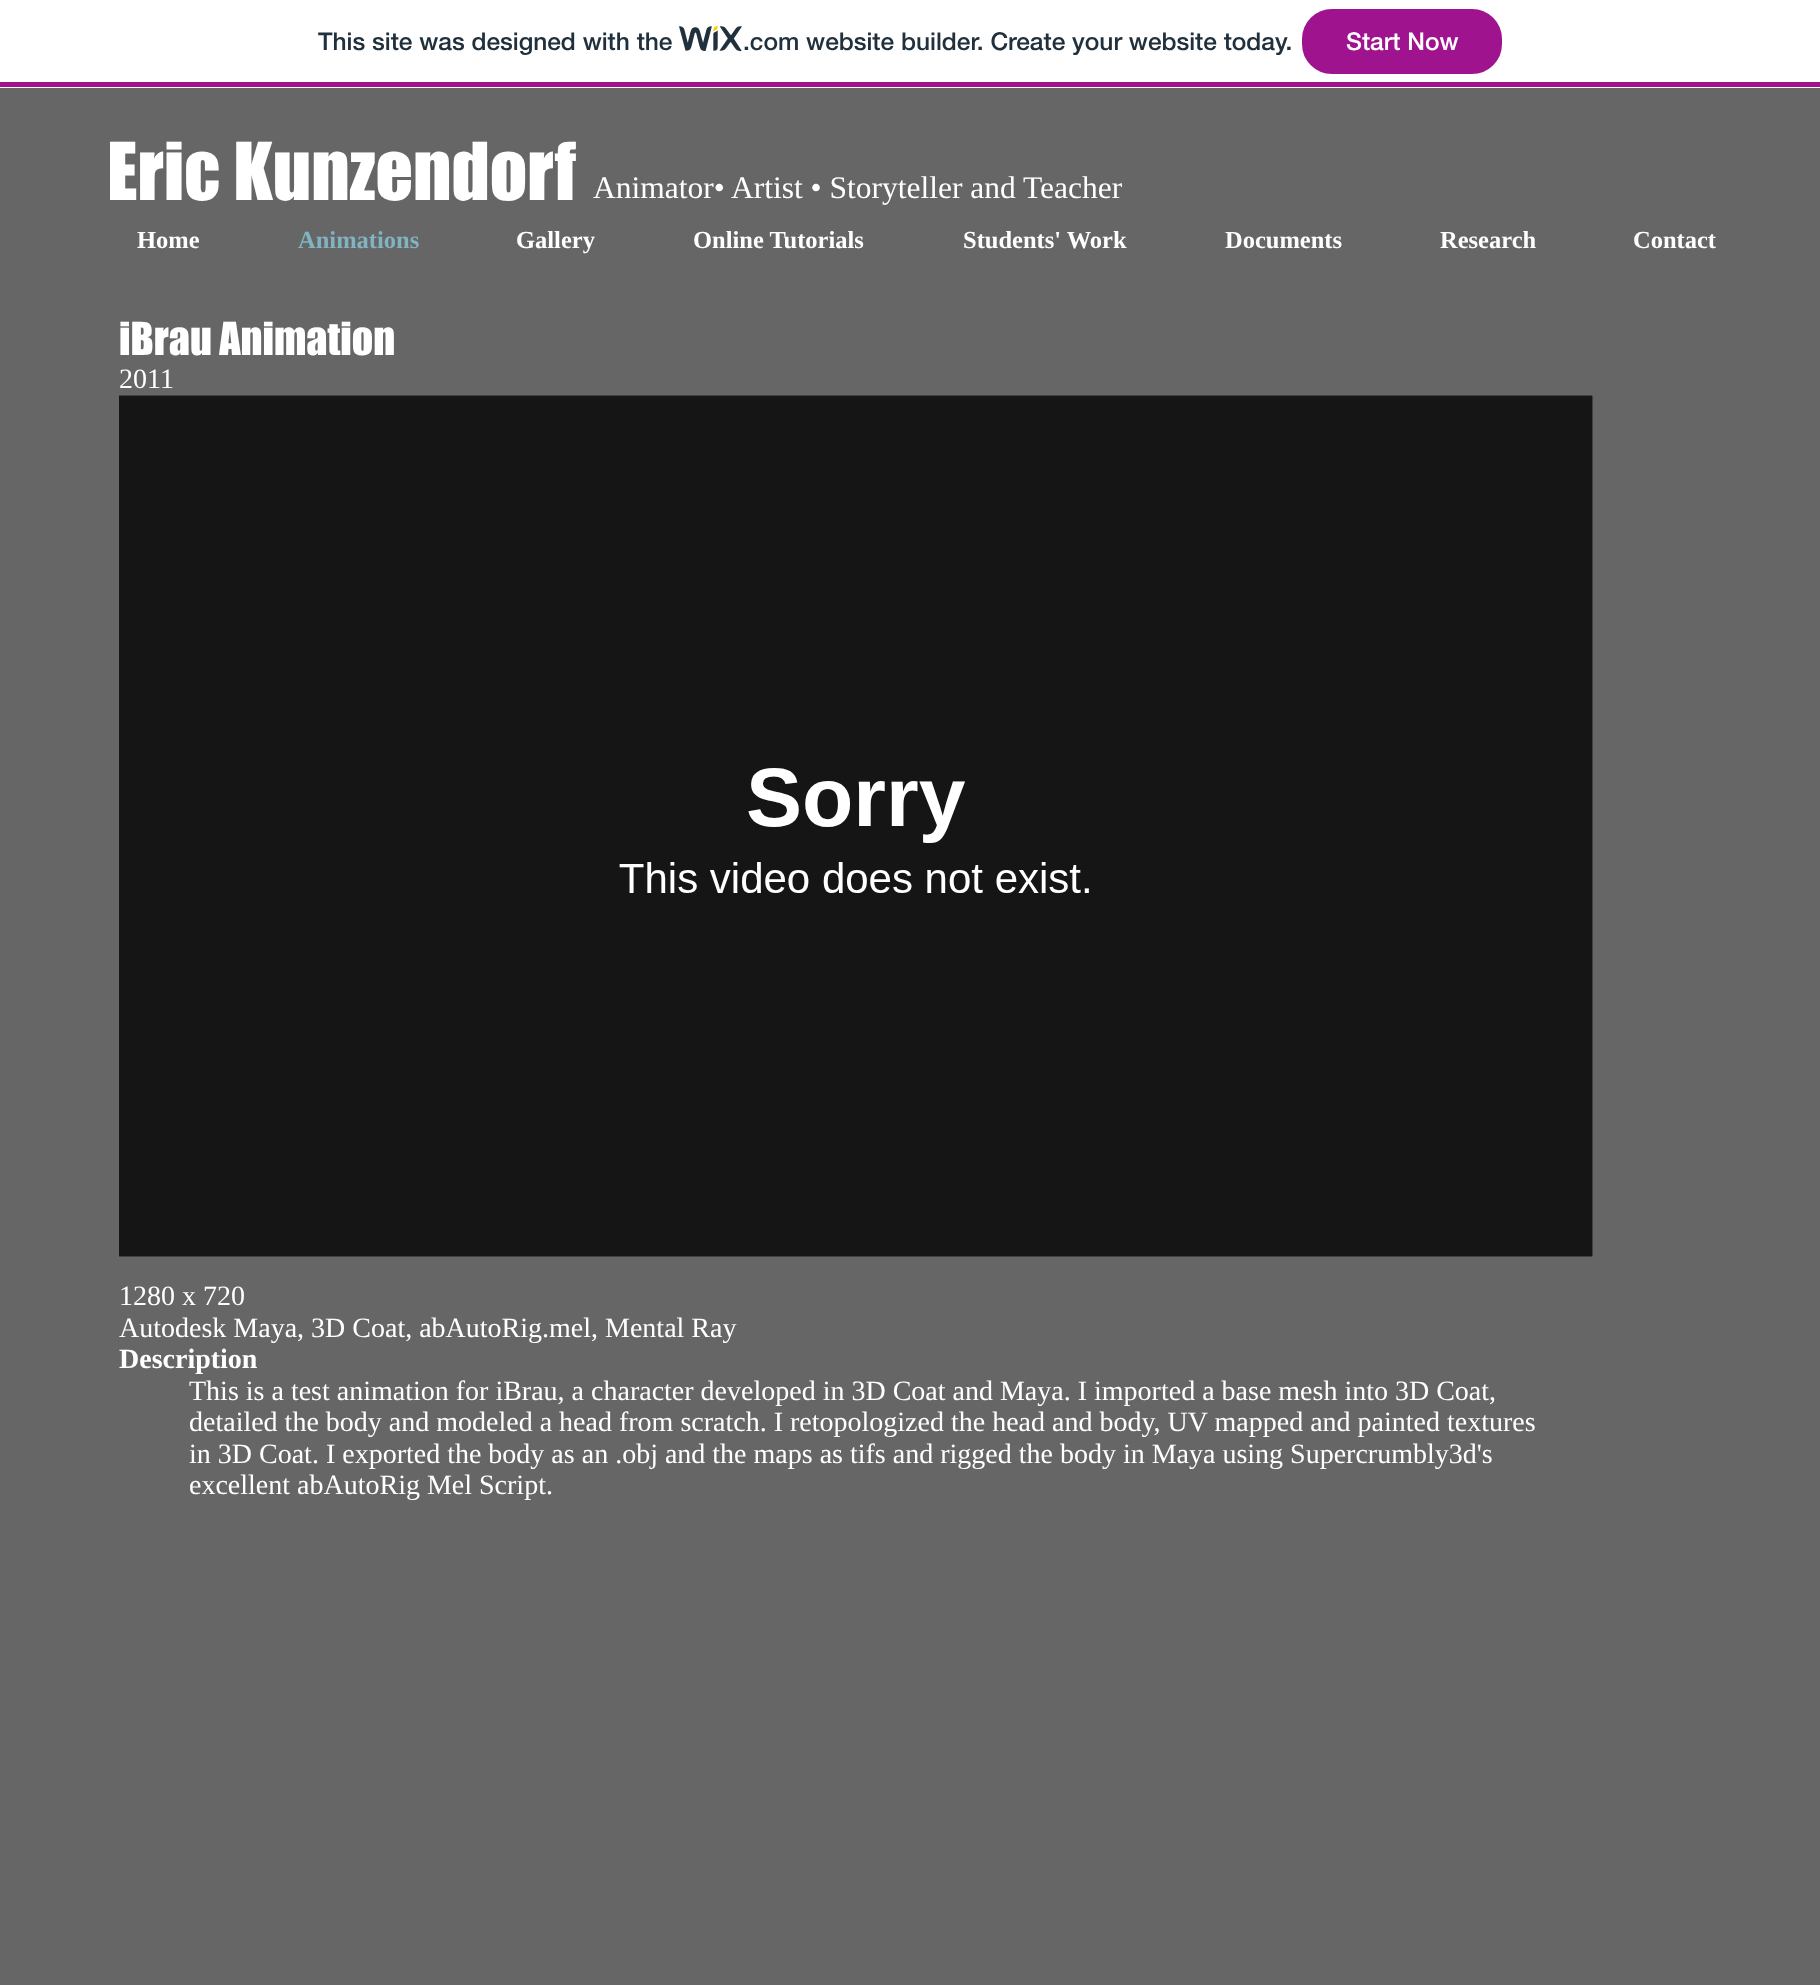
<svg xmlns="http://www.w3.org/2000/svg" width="1820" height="1985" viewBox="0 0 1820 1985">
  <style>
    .t1 { font: 500 24.5px 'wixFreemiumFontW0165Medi'; fill: #20303c; }
    .t2 { font: 500 24.5px 'wixFreemiumFontW0165Medi'; fill: #fff; }
    .t3 { font: 73.5px 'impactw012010'; fill: #fff; }
    .t4 { font: 31.5px Liberation Serif; fill: #fff; }
    .t5 { font: bold 24.5px Liberation Serif; fill: #fff; }
    .t6 { font: bold 24.5px Liberation Serif; fill: #81b3c1; }
    .t7 { font: 42px 'impactw012010'; fill: #fff; }
    .t8 { font: 28px Liberation Serif; fill: #fff; }
    .t9 { font: bold 28px Liberation Serif; fill: #fff; }
  </style>
  <rect width="100%" height="100%" fill="#fff"/>
  <rect x="0" y="82" width="1820" height="5" fill="#a0138e"/>
  <text x="318" y="50" class="t1">This site was designed with the</text>
  <image x="679" y="26" width="63" height="26" href="images/1.png"/>
  <text x="743" y="50" class="t1">.com website builder. Create your website today.</text>
  <rect x="1303" y="10" width="198" height="63" rx="29" fill="#a0138e" stroke="#a0138e" stroke-width="2"/>
  <text x="1346" y="50" class="t2">Start Now</text>
  <rect x="0" y="88" width="1820" height="1897" fill="#666"/>
  <text x="107" y="200" class="t3">Eric Kunzendorf</text>
  <text x="593" y="198" class="t4">Animator• Artist • Storyteller and Teacher</text>
  <text x="137" y="248" class="t5">Home</text>
  <text x="298" y="248" class="t6">Animations</text>
  <text x="516" y="248" class="t5">Gallery</text>
  <text x="693" y="248" class="t5">Online Tutorials</text>
  <text x="963" y="248" class="t5">Students' Work</text>
  <text x="1225" y="248" class="t5">Documents</text>
  <text x="1440" y="248" class="t5">Research</text>
  <text x="1633" y="248" class="t5">Contact</text>
  <text x="119" y="355" class="t7">iBrau Animation</text>
  <text x="119" y="388" class="t8">2011</text>
  <image x="119" y="395" width="1474" height="862" href="images/2.png"/>
  <text x="119" y="1305" class="t8">1280 x 720</text>
  <text x="119" y="1337" class="t8">Autodesk Maya, 3D Coat, abAutoRig.mel, Mental Ray</text>
  <text x="119" y="1368" class="t9">Description</text>
  <text x="189" y="1400" class="t8">This is a test animation for iBrau, a character developed in 3D Coat and Maya. I imported a base mesh into 3D Coat,</text>
  <text x="189" y="1431" class="t8">detailed the body and modeled a head from scratch. I retopologized the head and body, UV mapped and painted textures</text>
  <text x="189" y="1463" class="t8">in 3D Coat. I exported the body as an .obj and the maps as tifs and rigged the body in Maya using Supercrumbly3d's</text>
  <text x="189" y="1494" class="t8">excellent abAutoRig Mel Script.</text>
</svg>
